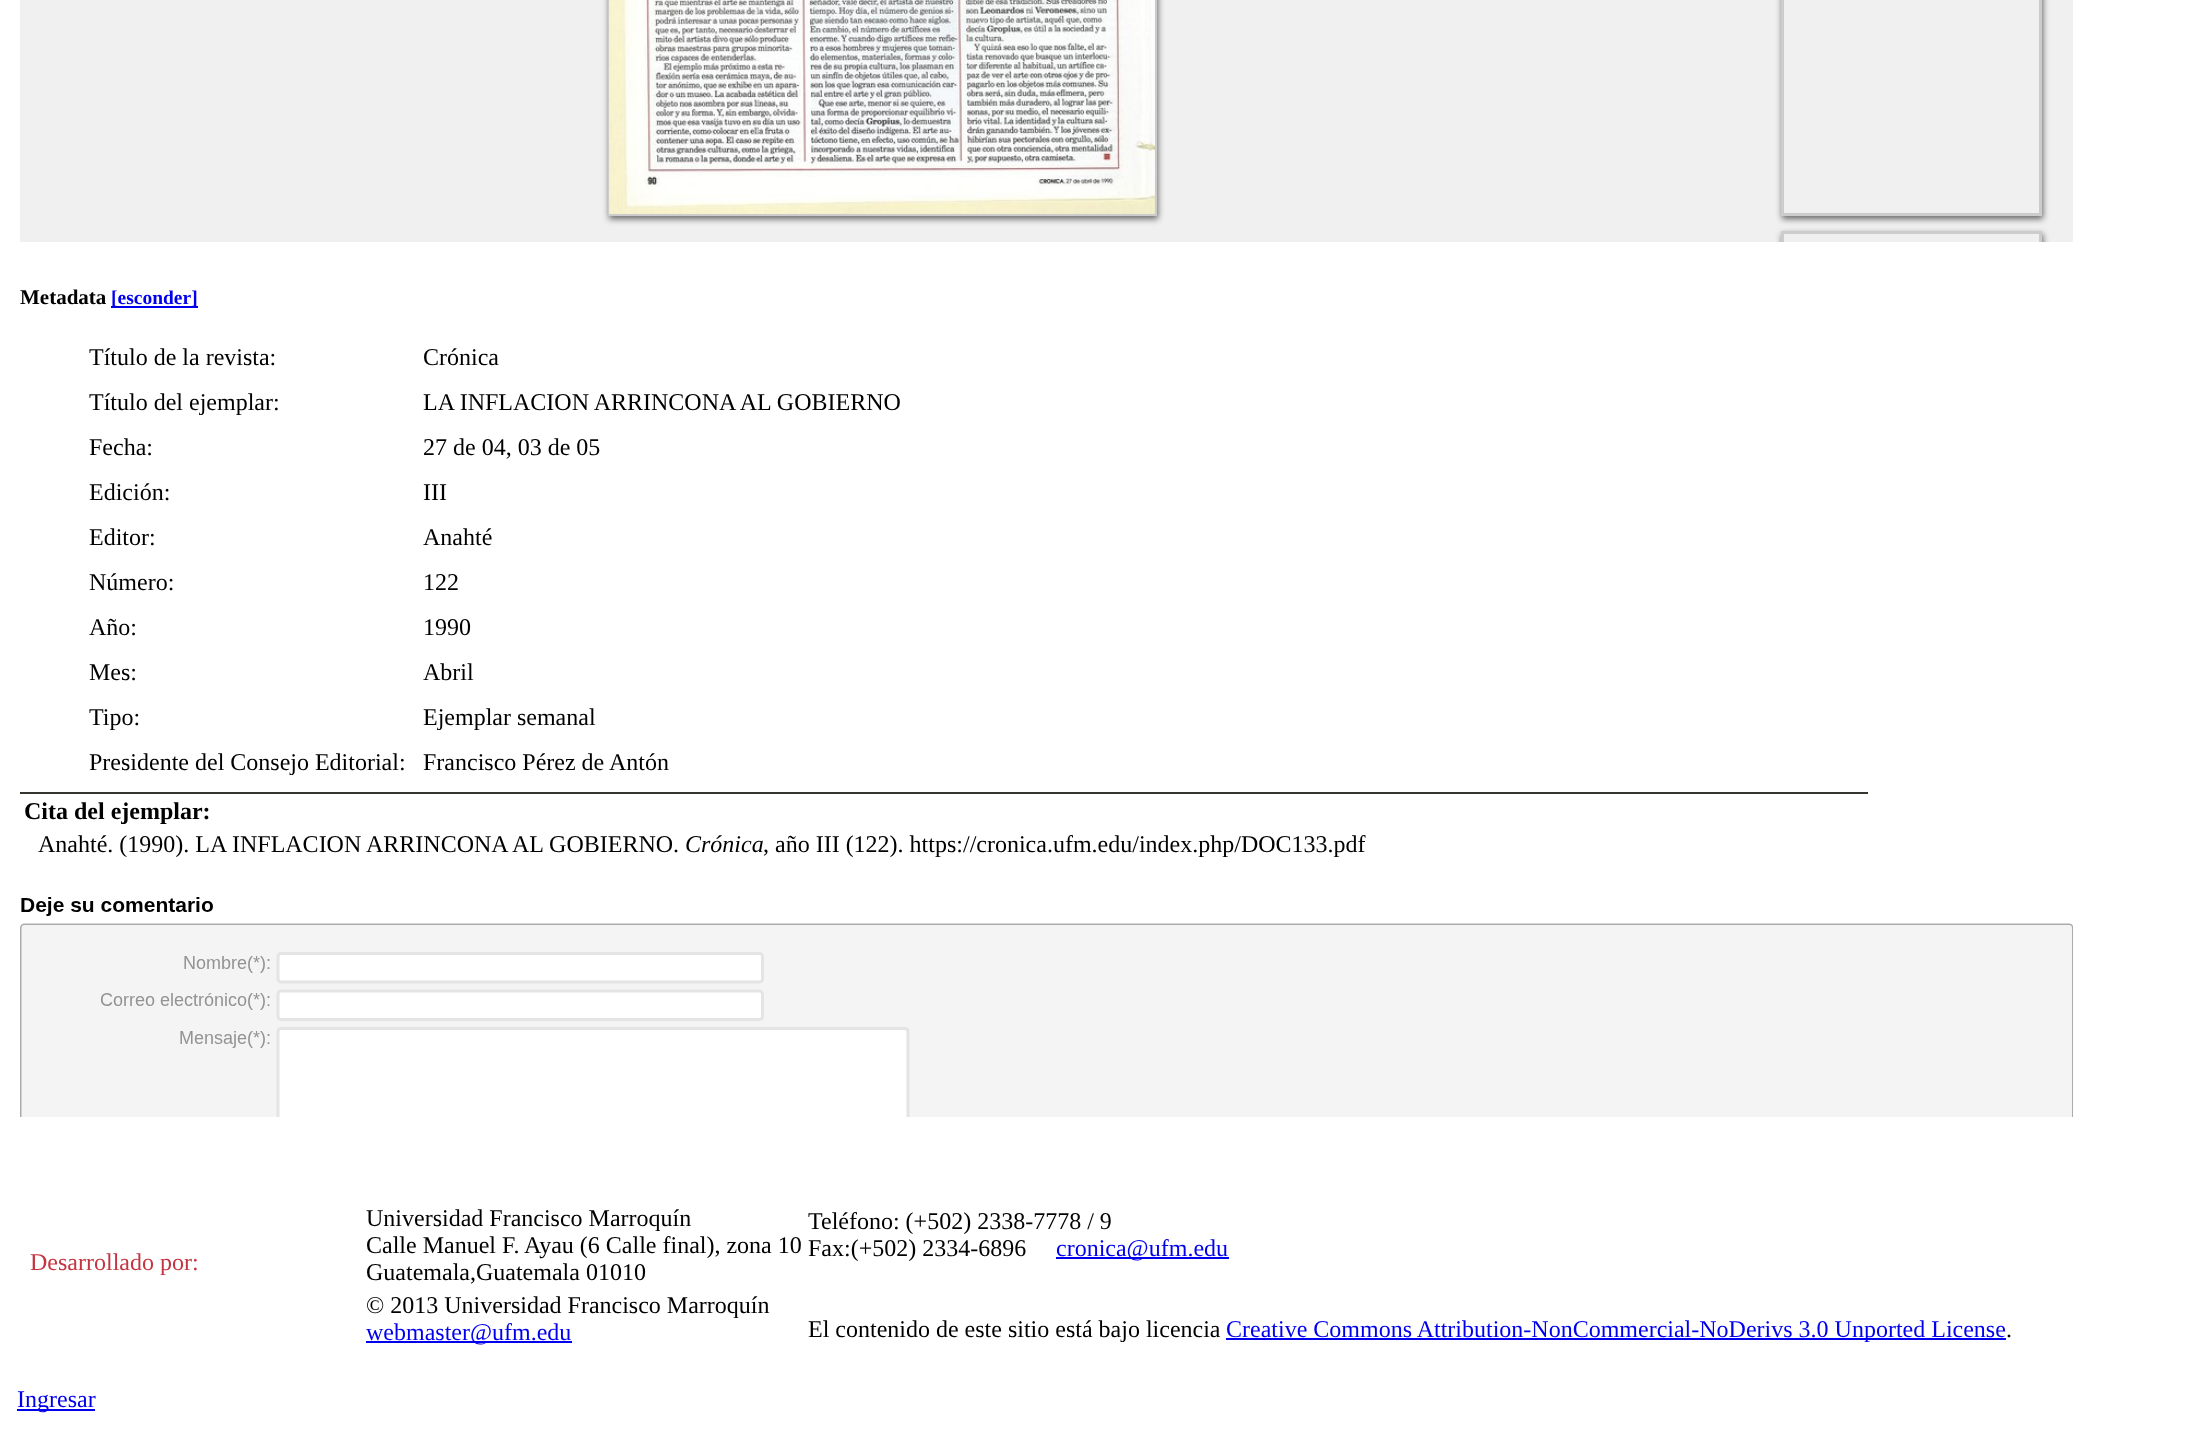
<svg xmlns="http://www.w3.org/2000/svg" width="2210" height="1429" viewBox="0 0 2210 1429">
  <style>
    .t1 { font: bold 21px Liberation Serif; fill: #000; }
    .t2 { font: bold 19.5px Liberation Serif; fill: #00e; }
    .t3 { font: 24px Liberation Serif; fill: #000; }
    .t4 { font: bold 24px Liberation Serif; fill: #000; }
    .t5 { font: italic 24px Liberation Serif; fill: #000; }
    .t6 { font: 24px Liberation Serif; fill: #c33641; }
    .t7 { font: 24px Liberation Serif; fill: #00e; }
  </style>
  <defs>
    <clipPath id="clip1"><path d="M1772 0H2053V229H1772ZM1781-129H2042V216H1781Z" clip-rule="evenodd"/></clipPath>
    <clipPath id="clip2"><rect x="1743" y="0" width="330" height="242"/></clipPath>
    <clipPath id="clip3"><path d="M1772 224H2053V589H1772ZM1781 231H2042V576H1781Z" clip-rule="evenodd"/></clipPath>
    <clipPath id="clip4"><rect x="1743" y="0" width="330" height="242"/></clipPath>
  </defs>
  <rect width="100%" height="100%" fill="#fff"/>
  <rect x="20" y="0" width="2053" height="242" fill="#f0f0f0"/>
  <rect x="609" y="-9" width="549" height="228" fill="#666" filter="blur(3px)"/>
  <rect x="609" y="-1" width="547" height="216" fill="none" stroke="#ccc" stroke-width="2"/>
  <image x="609" y="0" width="546" height="214" href="images/1.png"/>
  <g clip-path="url(#clip1)">
    <rect x="1782" y="-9" width="261" height="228" fill="#666" filter="blur(3px)"/>
  </g>
  <rect x="1782.5" y="-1.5" width="258" height="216" fill="none" stroke="#ccc" stroke-width="3"/>
  <g clip-path="url(#clip2)">
    <g clip-path="url(#clip3)">
      <rect x="1782" y="234" width="261" height="345" fill="#666" filter="blur(3px)"/>
    </g>
  </g>
  <g clip-path="url(#clip4)">
    <rect x="1782.5" y="232.5" width="258" height="342" fill="none" stroke="#ccc" stroke-width="3"/>
  </g>
  <text x="20" y="304" class="t1">Metadata</text>
  <rect x="111" y="306" width="87" height="2" fill="#00e"/>
  <text x="111" y="304" class="t2">[esconder]</text>
  <text x="89" y="365" class="t3">Título de la revista:</text>
  <text x="423" y="365" class="t3">Crónica</text>
  <text x="89" y="410" class="t3">Título del ejemplar:</text>
  <text x="423" y="410" class="t3">LA INFLACION ARRINCONA AL GOBIERNO</text>
  <text x="89" y="455" class="t3">Fecha:</text>
  <text x="423" y="455" class="t3">27 de 04, 03 de 05</text>
  <text x="89" y="500" class="t3">Edición:</text>
  <text x="423" y="500" class="t3">III</text>
  <text x="89" y="545" class="t3">Editor:</text>
  <text x="423" y="545" class="t3">Anahté</text>
  <text x="89" y="590" class="t3">Número:</text>
  <text x="423" y="590" class="t3">122</text>
  <text x="89" y="635" class="t3">Año:</text>
  <text x="423" y="635" class="t3">1990</text>
  <text x="89" y="680" class="t3">Mes:</text>
  <text x="423" y="680" class="t3">Abril</text>
  <text x="89" y="725" class="t3">Tipo:</text>
  <text x="423" y="725" class="t3">Ejemplar semanal</text>
  <text x="89" y="770" class="t3">Presidente del Consejo Editorial:</text>
  <text x="423" y="770" class="t3">Francisco Pérez de Antón</text>
  <rect x="20" y="792" width="1848" height="2" fill="#373530"/>
  <text x="24" y="819" class="t4">Cita del ejemplar:</text>
  <text x="38" y="852" class="t3">Anahté. (1990). LA INFLACION ARRINCONA AL GOBIERNO.</text>
  <text x="685" y="852" class="t5">Crónica</text>
  <text x="763" y="852" class="t3">, año III (122). https://cronica.ufm.edu/index.php/DOC133.pdf</text>
  <image x="20" y="897" width="2053" height="220" href="images/2.png"/>
  <text x="30" y="1270" class="t6">Desarrollado por:</text>
  <text x="366" y="1226" class="t3">Universidad Francisco Marroquín</text>
  <text x="366" y="1253" class="t3">Calle Manuel F. Ayau (6 Calle final), zona 10</text>
  <text x="366" y="1280" class="t3">Guatemala,Guatemala 01010</text>
  <text x="808" y="1229" class="t3">Teléfono: (+502) 2338-7778 / 9</text>
  <text x="808" y="1256" class="t3">Fax:(+502) 2334-6896</text>
  <rect x="1056" y="1257" width="173" height="2" fill="#00e"/>
  <text x="1056" y="1256" class="t7">cronica@ufm.edu</text>
  <text x="808" y="1337" class="t3">El contenido de este sitio está bajo licencia</text>
  <rect x="1226" y="1338" width="780" height="2" fill="#00e"/>
  <text x="1226" y="1337" class="t7">Creative Commons Attribution-NonCommercial-NoDerivs 3.0 Unported License</text>
  <text x="2006" y="1337" class="t3">.</text>
  <text x="366" y="1313" class="t3">© 2013 Universidad Francisco Marroquín</text>
  <rect x="366" y="1341" width="206" height="2" fill="#00e"/>
  <text x="366" y="1340" class="t7">webmaster@ufm.edu</text>
  <rect x="17" y="1409" width="78" height="2" fill="#00e"/>
  <text x="17" y="1407" class="t7">Ingresar</text>
</svg>
